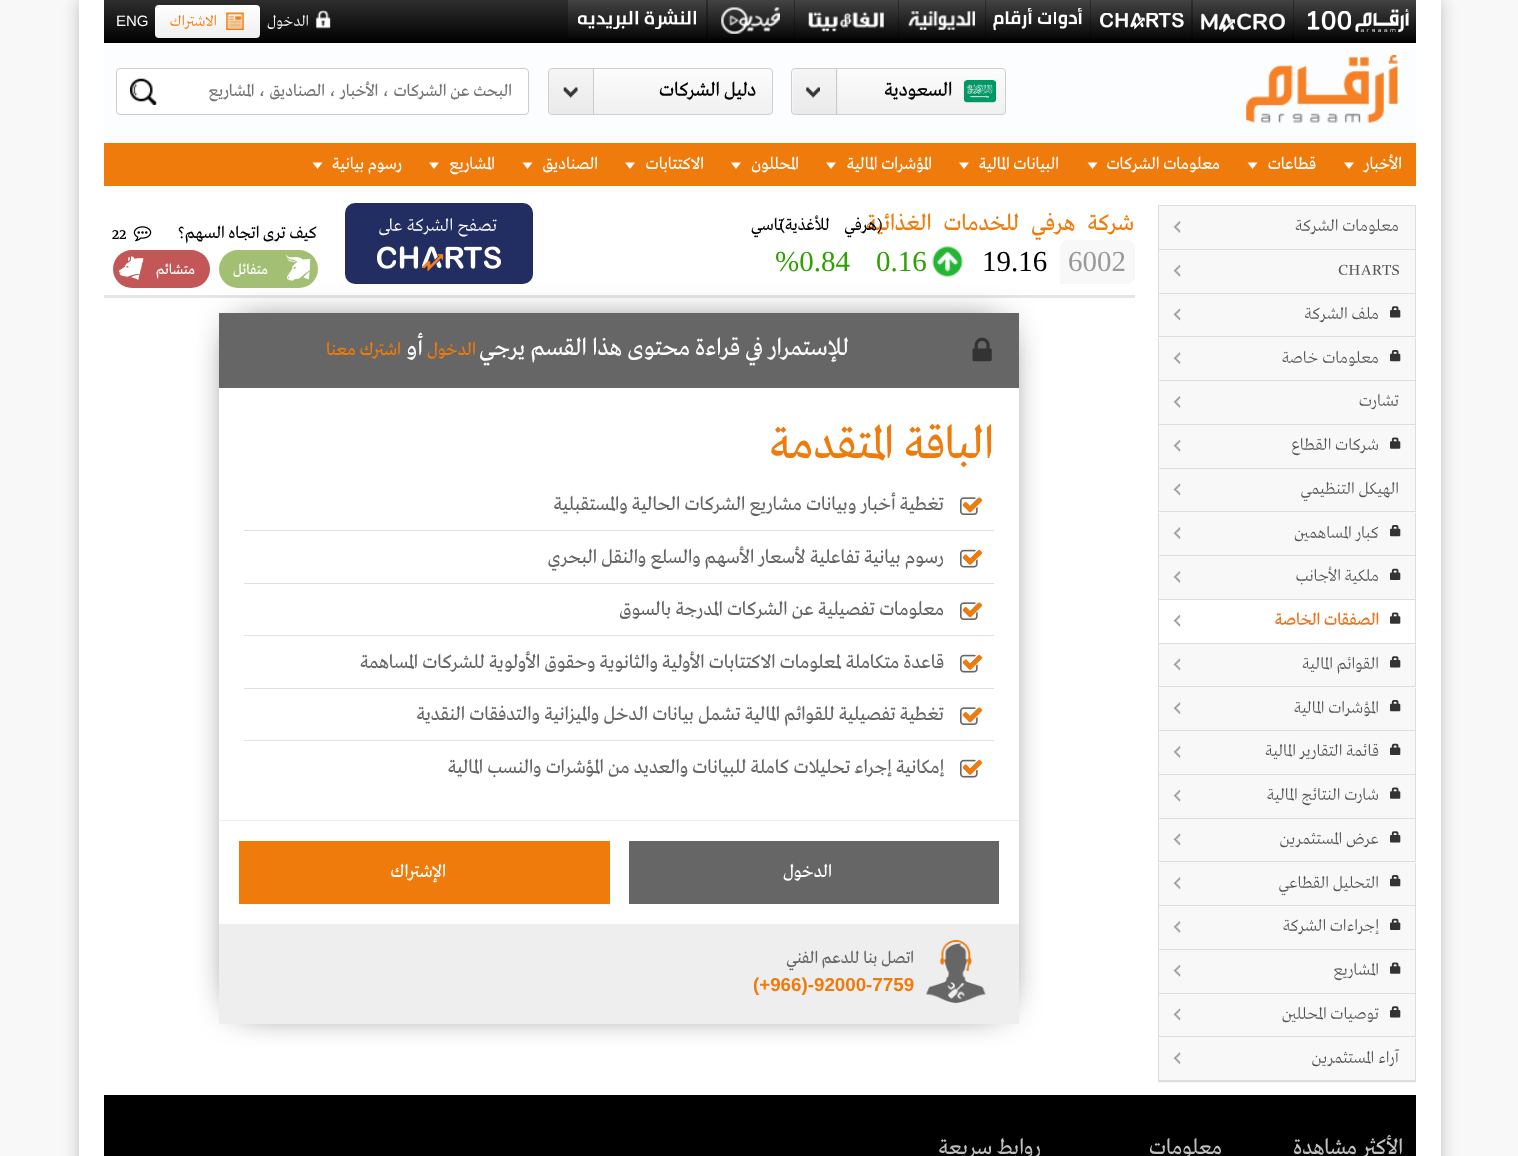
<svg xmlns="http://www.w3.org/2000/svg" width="1518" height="1156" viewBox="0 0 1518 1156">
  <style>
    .t1 { font: 16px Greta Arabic; direction: rtl; fill: #fff; }
    .t2 { font: 16px Greta Arabic; direction: rtl; fill: #ee7b0b; }
    .t3 { font: 15px Liberation Sans; fill: #fff; }
    .t4 { font: bold 20px 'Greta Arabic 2'; direction: rtl; fill: #000; }
    .t5 { font: bold 17.5px Greta Arabic; direction: rtl; fill: #757575; }
    .t6 { font: bold 17.5px Greta Arabic; direction: rtl; fill: #fff; }
    .t7 { font: 17.5px Greta Arabic; direction: rtl; fill: #535353; }
    .t8 { font: 17.5px Greta Arabic; fill: #535353; }
    .t9 { font: bold 17.5px 'Greta Arabic 2'; direction: rtl; fill: #ee7421; }
    .t10 { font: bold 23.75px Greta Arabic; letter-spacing: -0.8px; direction: rtl; fill: #ee7b0b; }
    .t11 { font: bold 17.5px Greta Arabic; letter-spacing: -0.8px; direction: rtl; fill: #000; }
    .t12 { font: 29px Liberation Serif; fill: #999; }
    .t13 { font: 29px Liberation Serif; fill: #000; }
    .t14 { font: 29px Liberation Serif; fill: #2da100; }
    .t15 { font: 18.75px Greta Arabic; direction: rtl; fill: #fff; }
    .t16 { font: bold 17.5px Greta Arabic; direction: rtl; fill: #000; }
    .t17 { font: bold 16px Greta Arabic; fill: #000; }
    .t18 { font: bold 15px Greta Arabic; direction: rtl; fill: #fff; }
    .t19 { font: bold 25px Greta Arabic; direction: rtl; fill: #fff; }
    .t20 { font: bold 18.75px Greta Arabic; direction: rtl; fill: #ee7b0b; }
    .t21 { font: bold 47.5px Greta Arabic; direction: rtl; fill: #ee7b0b; }
    .t22 { font: bold 20px Greta Arabic; direction: rtl; fill: #666; }
    .t23 { font: bold 18.75px Greta Arabic; direction: rtl; fill: #fff; }
    .t24 { font: bold 17.5px Greta Arabic; direction: rtl; fill: #666; }
    .t25 { font: bold 18.75px Liberation Sans; fill: #ee7b0b; }
    .t26 { font: bold 22.5px Greta Arabic; direction: rtl; fill: #c1c1c1; }
  </style>
  <defs>
    <linearGradient id="g1" gradientUnits="userSpaceOnUse" x1="760" y1="0" x2="760" y2="43"><stop offset="0" stop-color="#2e2e2e"/><stop offset="1" stop-color="#000"/></linearGradient>
    <linearGradient id="g2" gradientUnits="userSpaceOnUse" x1="1355" y1="0" x2="1355" y2="43"><stop offset="0" stop-color="#434343"/><stop offset="1" stop-color="#000"/></linearGradient>
    <linearGradient id="g3" gradientUnits="userSpaceOnUse" x1="1243" y1="0" x2="1243" y2="43"><stop offset="0" stop-color="#434343"/><stop offset="1" stop-color="#000"/></linearGradient>
    <linearGradient id="g4" gradientUnits="userSpaceOnUse" x1="1141" y1="0" x2="1141" y2="43"><stop offset="0" stop-color="#434343"/><stop offset="1" stop-color="#000"/></linearGradient>
    <linearGradient id="g5" gradientUnits="userSpaceOnUse" x1="1038" y1="0" x2="1038" y2="43"><stop offset="0" stop-color="#434343"/><stop offset="1" stop-color="#000"/></linearGradient>
    <linearGradient id="g6" gradientUnits="userSpaceOnUse" x1="942" y1="0" x2="942" y2="43"><stop offset="0" stop-color="#434343"/><stop offset="1" stop-color="#000"/></linearGradient>
    <linearGradient id="g7" gradientUnits="userSpaceOnUse" x1="846" y1="0" x2="846" y2="43"><stop offset="0" stop-color="#434343"/><stop offset="1" stop-color="#000"/></linearGradient>
    <linearGradient id="g8" gradientUnits="userSpaceOnUse" x1="751" y1="0" x2="751" y2="43"><stop offset="0" stop-color="#434343"/><stop offset="1" stop-color="#000"/></linearGradient>
    <linearGradient id="g9" gradientUnits="userSpaceOnUse" x1="637" y1="0" x2="637" y2="43"><stop offset="0" stop-color="#434343"/><stop offset="1" stop-color="#000"/></linearGradient>
    <linearGradient id="g10" gradientUnits="userSpaceOnUse" x1="208" y1="5" x2="208" y2="38"><stop offset="0" stop-color="#fff"/><stop offset="1" stop-color="#efefef"/></linearGradient>
    <clipPath id="clip1"><rect x="791" y="68" width="215" height="47" rx="4"/></clipPath>
    <linearGradient id="g11" gradientUnits="userSpaceOnUse" x1="899" y1="69" x2="899" y2="114"><stop offset="0" stop-color="#fcfcfc"/><stop offset="1" stop-color="#f1f0f1"/></linearGradient>
    <linearGradient id="g12" gradientUnits="userSpaceOnUse" x1="814" y1="69" x2="814" y2="114"><stop offset="0" stop-color="#f5f5f5"/><stop offset="1" stop-color="#ebeaea"/></linearGradient>
    <clipPath id="clip2"><rect x="548" y="68" width="225" height="47" rx="4"/></clipPath>
    <linearGradient id="g13" gradientUnits="userSpaceOnUse" x1="660" y1="69" x2="660" y2="114"><stop offset="0.01" stop-color="#fcfcfc"/><stop offset="1" stop-color="#f1f0f1"/></linearGradient>
    <linearGradient id="g14" gradientUnits="userSpaceOnUse" x1="571" y1="69" x2="571" y2="114"><stop offset="0" stop-color="#f5f5f5"/><stop offset="1" stop-color="#ebeaea"/></linearGradient>
    <clipPath id="clip3"><path d="M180 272H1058V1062H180ZM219 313H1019V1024H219Z" clip-rule="evenodd"/></clipPath>
    <clipPath id="clip4"><rect x="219" y="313" width="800" height="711"/></clipPath>
  </defs>
  <rect width="100%" height="100%" fill="#f8f8f8"/>
  <rect x="79" y="0" width="1362" height="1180" fill="#bdbdbd" filter="blur(8px)"/>
  <rect x="79" y="0" width="1362" height="1156" fill="#fff"/>
  <rect x="104" y="43" width="1312" height="100" fill="#fcfdff"/>
  <rect x="104" y="0" width="1190" height="43" fill="url(#g1)"/>
  <rect x="1294" y="0" width="122" height="43" fill="url(#g2)"/>
  <image x="1308" y="9" width="101" height="24" href="images/1.png"/>
  <rect x="1193" y="0" width="100" height="38" fill="url(#g3)"/>
  <image x="1201" y="13" width="84" height="19" href="images/2.png"/>
  <rect x="1091" y="0" width="100" height="38" fill="url(#g4)"/>
  <image x="1100" y="13" width="84" height="17" href="images/3.png"/>
  <rect x="986" y="0" width="104" height="38" fill="url(#g5)"/>
  <image x="993" y="8" width="90" height="23" href="images/4.png"/>
  <rect x="899" y="0" width="86" height="38" fill="url(#g6)"/>
  <image x="908" y="11" width="67" height="19" href="images/5.png"/>
  <rect x="795" y="0" width="103" height="38" fill="url(#g7)"/>
  <image x="808" y="12" width="76" height="20" href="images/6.png"/>
  <rect x="708" y="0" width="86" height="38" fill="url(#g8)"/>
  <image x="721" y="7" width="59" height="27" href="images/7.png"/>
  <rect x="568" y="0" width="138" height="38" fill="url(#g9)"/>
  <image x="578" y="9" width="118" height="20" href="images/8.png"/>
  <image x="315" y="10" width="16" height="19" href="images/9.png"/>
  <text x="309" y="26" class="t1">الدخول</text>
  <rect x="155" y="5" width="105" height="33" rx="4" fill="url(#g10)"/>
  <image x="226" y="12" width="18" height="18" href="images/10.png"/>
  <text x="217" y="26" class="t2">الاشتراك</text>
  <text x="116" y="26" class="t3">ENG</text>
  <image x="1246" y="55" width="152" height="68" href="images/11.png"/>
  <g clip-path="url(#clip1)">
    <rect x="791" y="69" width="215" height="45" fill="url(#g11)"/>
  </g>
  <rect x="791.5" y="68.5" width="214" height="46" rx="3.5" fill="none" stroke="#cfcfcf"/>
  <image x="963" y="80" width="34" height="23" href="images/12.png"/>
  <text x="952" y="96" class="t4">السعودية</text>
  <path d="M797 69H838V114H797C795 114 793 112 793 110V73C793 71 795 69 797 69Z" fill="url(#g12)"/>
  <rect x="836" y="69" width="1" height="45" fill="#ccc"/>
  <image x="806" y="87" width="14" height="11" href="images/13.png"/>
  <g clip-path="url(#clip2)">
    <rect x="548" y="69" width="225" height="45" fill="url(#g13)"/>
  </g>
  <rect x="548.5" y="68.5" width="224" height="46" rx="3.5" fill="none" stroke="#cfcfcf"/>
  <text x="756" y="96" class="t4">دليل الشركات</text>
  <path d="M553 69H594V114H553C551 114 549 112 549 110V73C549 71 551 69 553 69Z" fill="url(#g14)"/>
  <rect x="593" y="69" width="1" height="45" fill="#ccc"/>
  <image x="563" y="87" width="15" height="11" href="images/14.png"/>
  <rect x="116.5" y="68.5" width="412" height="46" rx="3.5" fill="#fff" stroke="#ccc"/>
  <text x="512" y="96" class="t5">البحث عن الشركات ، الأخبار ، الصناديق ، المشاريع</text>
  <image x="130" y="78" width="27" height="27" href="images/15.png"/>
  <rect x="104" y="143" width="1312" height="43" fill="#ee7b0b"/>
  <text x="1402" y="169" class="t6">الأخبار</text>
  <path d="M1344 162.5H1354L1349 169Z" fill="#fff"/>
  <text x="1316" y="169" class="t6">قطاعات</text>
  <path d="M1247.5 162.5H1257.5L1252.5 169Z" fill="#fff"/>
  <text x="1220" y="169" class="t6">معلومات الشركات</text>
  <path d="M1087.5 162.5H1097.5L1092.5 169Z" fill="#fff"/>
  <text x="1059" y="169" class="t6">البيانات المالية</text>
  <path d="M959 162.5H969L964 169Z" fill="#fff"/>
  <text x="932" y="169" class="t6">المؤشرات المالية</text>
  <path d="M826 162.5H836L831 169Z" fill="#fff"/>
  <text x="799" y="169" class="t6">المحللون</text>
  <path d="M731 162.5H741L736 169Z" fill="#fff"/>
  <text x="704" y="169" class="t6">الاكتتابات</text>
  <path d="M625 162.5H635L630 169Z" fill="#fff"/>
  <text x="598" y="169" class="t6">الصناديق</text>
  <path d="M522.5 162.5H532.5L527.5 169Z" fill="#fff"/>
  <text x="495" y="169" class="t6">المشاريع</text>
  <path d="M429 162.5H439L434 169Z" fill="#fff"/>
  <text x="402" y="169" class="t6">رسوم بيانية</text>
  <path d="M312.5 162.5H322.5L317.5 169Z" fill="#fff"/>
  <rect x="1158" y="206" width="258" height="877" fill="#f8f8f8"/>
  <rect x="1158" y="205" width="258" height="1" fill="#ddd"/>
  <rect x="1158" y="1080" width="258" height="2" fill="#ddd"/>
  <rect x="1158" y="249" width="258" height="1" fill="#ddd"/>
  <rect x="1415" y="206" width="1" height="43" fill="#ddd"/>
  <rect x="1158" y="206" width="1" height="43" fill="#ddd"/>
  <text x="1399" y="231" class="t7">معلومات الشركة</text>
  <image x="1173" y="221" width="8" height="12" href="images/16.png"/>
  <rect x="1158" y="293" width="258" height="1" fill="#ddd"/>
  <rect x="1415" y="250" width="1" height="43" fill="#ddd"/>
  <rect x="1158" y="250" width="1" height="43" fill="#ddd"/>
  <text x="1338" y="275" class="t8">CHARTS</text>
  <image x="1173" y="264" width="8" height="13" href="images/17.png"/>
  <rect x="1158" y="336" width="258" height="1" fill="#ddd"/>
  <image x="1390" y="306" width="11" height="12" href="images/18.png"/>
  <rect x="1415" y="294" width="1" height="42" fill="#ddd"/>
  <rect x="1158" y="294" width="1" height="42" fill="#ddd"/>
  <text x="1379" y="319" class="t7">ملف الشركة</text>
  <image x="1173" y="308" width="8" height="13" href="images/19.png"/>
  <rect x="1158" y="380" width="258" height="1" fill="#ddd"/>
  <image x="1390" y="350" width="11" height="12" href="images/20.png"/>
  <rect x="1415" y="338" width="1" height="42" fill="#ddd"/>
  <rect x="1158" y="338" width="1" height="42" fill="#ddd"/>
  <text x="1379" y="363" class="t7">معلومات خاصة</text>
  <image x="1173" y="352" width="8" height="12" href="images/21.png"/>
  <rect x="1158" y="424" width="258" height="1" fill="#ddd"/>
  <rect x="1415" y="381" width="1" height="43" fill="#ddd"/>
  <rect x="1158" y="381" width="1" height="43" fill="#ddd"/>
  <text x="1399" y="406" class="t7">تشارت</text>
  <image x="1173" y="396" width="8" height="12" href="images/16.png"/>
  <rect x="1158" y="468" width="258" height="1" fill="#ddd"/>
  <image x="1390" y="437" width="11" height="12" href="images/22.png"/>
  <rect x="1415" y="425" width="1" height="43" fill="#ddd"/>
  <rect x="1158" y="425" width="1" height="43" fill="#ddd"/>
  <text x="1379" y="450" class="t7">شركات القطاع</text>
  <image x="1173" y="439" width="8" height="13" href="images/17.png"/>
  <rect x="1158" y="511" width="258" height="1" fill="#ddd"/>
  <rect x="1415" y="469" width="1" height="42" fill="#ddd"/>
  <rect x="1158" y="469" width="1" height="42" fill="#ddd"/>
  <text x="1399" y="494" class="t7">الهيكل التنظيمي</text>
  <image x="1173" y="483" width="8" height="13" href="images/19.png"/>
  <rect x="1158" y="555" width="258" height="1" fill="#ddd"/>
  <image x="1390" y="525" width="11" height="12" href="images/20.png"/>
  <rect x="1415" y="513" width="1" height="42" fill="#ddd"/>
  <rect x="1158" y="513" width="1" height="42" fill="#ddd"/>
  <text x="1379" y="538" class="t7">كبار المساهمين</text>
  <image x="1173" y="527" width="8" height="12" href="images/21.png"/>
  <rect x="1158" y="599" width="258" height="1" fill="#ddd"/>
  <image x="1390" y="568" width="11" height="12" href="images/23.png"/>
  <rect x="1415" y="556" width="1" height="43" fill="#ddd"/>
  <rect x="1158" y="556" width="1" height="43" fill="#ddd"/>
  <text x="1379" y="581" class="t7">ملكية الأجانب</text>
  <image x="1173" y="571" width="8" height="12" href="images/16.png"/>
  <rect x="1158" y="643" width="258" height="1" fill="#ddd"/>
  <rect x="1159" y="600" width="256" height="43" fill="#fff"/>
  <image x="1390" y="612" width="11" height="12" href="images/24.png"/>
  <rect x="1415" y="600" width="1" height="43" fill="#ddd"/>
  <rect x="1158" y="600" width="1" height="43" fill="#ddd"/>
  <text x="1379" y="625" class="t9">الصفقات الخاصة</text>
  <image x="1173" y="614" width="8" height="13" href="images/25.png"/>
  <rect x="1158" y="686" width="258" height="1" fill="#ddd"/>
  <image x="1390" y="656" width="11" height="12" href="images/18.png"/>
  <rect x="1415" y="644" width="1" height="42" fill="#ddd"/>
  <rect x="1158" y="644" width="1" height="42" fill="#ddd"/>
  <text x="1379" y="669" class="t7">القوائم المالية</text>
  <image x="1173" y="658" width="8" height="13" href="images/19.png"/>
  <rect x="1158" y="730" width="258" height="1" fill="#ddd"/>
  <image x="1390" y="700" width="11" height="12" href="images/20.png"/>
  <rect x="1415" y="688" width="1" height="42" fill="#ddd"/>
  <rect x="1158" y="688" width="1" height="42" fill="#ddd"/>
  <text x="1379" y="713" class="t7">المؤشرات المالية</text>
  <image x="1173" y="702" width="8" height="12" href="images/21.png"/>
  <rect x="1158" y="774" width="258" height="1" fill="#ddd"/>
  <image x="1390" y="743" width="11" height="12" href="images/23.png"/>
  <rect x="1415" y="731" width="1" height="43" fill="#ddd"/>
  <rect x="1158" y="731" width="1" height="43" fill="#ddd"/>
  <text x="1379" y="756" class="t7">قائمة التقارير المالية</text>
  <image x="1173" y="746" width="8" height="12" href="images/16.png"/>
  <rect x="1158" y="818" width="258" height="1" fill="#ddd"/>
  <image x="1390" y="787" width="11" height="12" href="images/22.png"/>
  <rect x="1415" y="775" width="1" height="43" fill="#ddd"/>
  <rect x="1158" y="775" width="1" height="43" fill="#ddd"/>
  <text x="1379" y="800" class="t7">شارت النتائج المالية</text>
  <image x="1173" y="789" width="8" height="13" href="images/17.png"/>
  <rect x="1158" y="861" width="258" height="1" fill="#ddd"/>
  <image x="1390" y="831" width="11" height="12" href="images/18.png"/>
  <rect x="1415" y="819" width="1" height="42" fill="#ddd"/>
  <rect x="1158" y="819" width="1" height="42" fill="#ddd"/>
  <text x="1379" y="844" class="t7">عرض المستثمرين</text>
  <image x="1173" y="833" width="8" height="13" href="images/19.png"/>
  <rect x="1158" y="905" width="258" height="1" fill="#ddd"/>
  <image x="1390" y="875" width="11" height="12" href="images/20.png"/>
  <rect x="1415" y="863" width="1" height="42" fill="#ddd"/>
  <rect x="1158" y="863" width="1" height="42" fill="#ddd"/>
  <text x="1379" y="888" class="t7">التحليل القطاعي</text>
  <image x="1173" y="877" width="8" height="12" href="images/21.png"/>
  <rect x="1158" y="949" width="258" height="1" fill="#ddd"/>
  <image x="1390" y="918" width="11" height="12" href="images/23.png"/>
  <rect x="1415" y="906" width="1" height="43" fill="#ddd"/>
  <rect x="1158" y="906" width="1" height="43" fill="#ddd"/>
  <text x="1379" y="931" class="t7">إجراءات الشركة</text>
  <image x="1173" y="921" width="8" height="12" href="images/16.png"/>
  <rect x="1158" y="993" width="258" height="1" fill="#ddd"/>
  <image x="1390" y="962" width="11" height="12" href="images/22.png"/>
  <rect x="1415" y="950" width="1" height="43" fill="#ddd"/>
  <rect x="1158" y="950" width="1" height="43" fill="#ddd"/>
  <text x="1379" y="975" class="t7">المشاريع</text>
  <image x="1173" y="964" width="8" height="13" href="images/17.png"/>
  <rect x="1158" y="1036" width="258" height="1" fill="#ddd"/>
  <image x="1390" y="1006" width="11" height="12" href="images/18.png"/>
  <rect x="1415" y="994" width="1" height="42" fill="#ddd"/>
  <rect x="1158" y="994" width="1" height="42" fill="#ddd"/>
  <text x="1379" y="1019" class="t7">توصيات المحللين</text>
  <image x="1173" y="1008" width="8" height="13" href="images/19.png"/>
  <rect x="1415" y="1038" width="1" height="42" fill="#ddd"/>
  <rect x="1158" y="1038" width="1" height="42" fill="#ddd"/>
  <text x="1399" y="1063" class="t7">آراء المستثمرين</text>
  <image x="1173" y="1052" width="8" height="12" href="images/21.png"/>
  <rect x="104" y="295" width="1031" height="3" fill="#e6e6e6"/>
  <path d="M1068 240H1127C1131.5 240 1135 243.5 1135 248V276C1135 280.5 1131.5 284 1127 284H1060V248C1060 243.5 1063.5 240 1068 240Z" fill="#f8f8f8"/>
  <text x="1134" y="230" word-spacing="7" class="t10">شركة هرفي للخدمات الغذائية</text>
  <text x="882" y="230" word-spacing="11" class="t11">(هرفي للأغذية)</text>
  <text x="783" y="230" class="t11">تاسي</text>
  <text x="1068" y="271" class="t12">6002</text>
  <text x="982" y="271" class="t13">19.16</text>
  <image x="932" y="246" width="31" height="31" href="images/26.png"/>
  <text x="876" y="271" class="t14">0.16</text>
  <text x="775" y="271" class="t14">%0.84</text>
  <rect x="345" y="203" width="188" height="81" rx="10" fill="#222e62"/>
  <text x="497" y="231" class="t15">تصفح الشركة على</text>
  <image x="377" y="246" width="124" height="25" href="images/27.png"/>
  <text x="317" y="238" class="t16">كيف ترى اتجاه السهم؟</text>
  <image x="133" y="226" width="19" height="16" href="images/28.png"/>
  <text x="112" y="239" class="t17">22</text>
  <g clip-path="url(#clip3)">
    <rect x="238" y="330" width="762" height="674" fill="#000" filter="blur(19px)"/>
  </g>
  <g clip-path="url(#clip4)">
    <g clip-path="url(#clip3)">
      <rect x="238" y="330" width="762" height="674" fill="#000" filter="blur(19px)"/>
    </g>
  </g>
  <rect x="219" y="250" width="99" height="38" rx="19" fill="#a2bf73"/>
  <image x="286" y="254" width="25" height="27" href="images/29.png"/>
  <text x="268" y="274" class="t18">متفائل</text>
  <rect x="113" y="250" width="97" height="38" rx="19" fill="#c35656"/>
  <text x="195" y="274" class="t18">متشائم</text>
  <image x="118" y="256" width="26" height="24" href="images/30.png"/>
  <rect x="219" y="313" width="800" height="75" fill="#666"/>
  <image x="972" y="337" width="20" height="25" href="images/31.png"/>
  <text x="849" y="355" class="t19">للإستمرار في قراءة محتوى هذا القسم يرجي</text>
  <text x="476" y="355" class="t20">الدخول</text>
  <text x="423" y="355" class="t19">أو</text>
  <text x="401" y="355" class="t20">اشترك معنا</text>
  <text x="994" y="458" class="t21">الباقة المتقدمة</text>
  <image x="960" y="497" width="19" height="18" href="images/32.png"/>
  <text x="944" y="510" class="t22">تغطية أخبار وبيانات مشاريع الشركات الحالية والمستقبلية</text>
  <image x="962" y="497" width="21" height="16" href="images/33.png"/>
  <rect x="244" y="530" width="750" height="1" fill="#dfdfdf"/>
  <image x="960" y="549" width="21" height="19" href="images/34.png"/>
  <text x="944" y="563" class="t22">رسوم بيانية تفاعلية لأسعار الأسهم والسلع والنقل البحري</text>
  <image x="962" y="549" width="21" height="16" href="images/35.png"/>
  <rect x="244" y="583" width="750" height="1" fill="#dfdfdf"/>
  <image x="960" y="602" width="19" height="18" href="images/32.png"/>
  <text x="944" y="615" class="t22">معلومات تفصيلية عن الشركات المدرجة بالسوق</text>
  <image x="962" y="602" width="21" height="16" href="images/33.png"/>
  <rect x="244" y="635" width="750" height="1" fill="#dfdfdf"/>
  <image x="960" y="654" width="21" height="19" href="images/34.png"/>
  <text x="944" y="668" class="t22">قاعدة متكاملة لمعلومات الاكتتابات الأولية والثانوية وحقوق الأولوية للشركات المساهمة</text>
  <image x="962" y="654" width="21" height="16" href="images/35.png"/>
  <rect x="244" y="688" width="750" height="1" fill="#dfdfdf"/>
  <image x="960" y="707" width="19" height="18" href="images/32.png"/>
  <text x="944" y="720" class="t22">تغطية تفصيلية للقوائم المالية تشمل بيانات الدخل والميزانية والتدفقات النقدية</text>
  <image x="962" y="707" width="21" height="16" href="images/33.png"/>
  <rect x="244" y="740" width="750" height="1" fill="#dfdfdf"/>
  <image x="960" y="759" width="21" height="19" href="images/34.png"/>
  <text x="944" y="773" class="t22">إمكانية إجراء تحليلات كاملة للبيانات والعديد من المؤشرات والنسب المالية</text>
  <image x="962" y="759" width="21" height="16" href="images/35.png"/>
  <rect x="1018" y="818" width="1" height="106" fill="#fff"/>
  <rect x="219" y="820" width="800" height="1" fill="#eee"/>
  <rect x="629" y="841" width="370" height="63" fill="#666"/>
  <text x="832" y="877" class="t23">الدخول</text>
  <rect x="239" y="841" width="371" height="63" fill="#ee7b0b"/>
  <text x="446" y="877" class="t23">الإشتراك</text>
  <rect x="219" y="924" width="800" height="100" fill="#eee"/>
  <image x="926" y="940" width="60" height="63" href="images/36.png"/>
  <text x="914" y="963" class="t24">اتصل بنا للدعم الفني</text>
  <text x="753" y="991" class="t25">(+966)-92000-7759</text>
  <rect x="104" y="1095" width="1312" height="61" fill="#000"/>
  <text x="1403" y="1154" class="t26">الأكثر مشاهدة</text>
  <text x="1222" y="1154" class="t26">معلومات</text>
  <text x="1041" y="1154" class="t26">روابط سريعة</text>
</svg>
